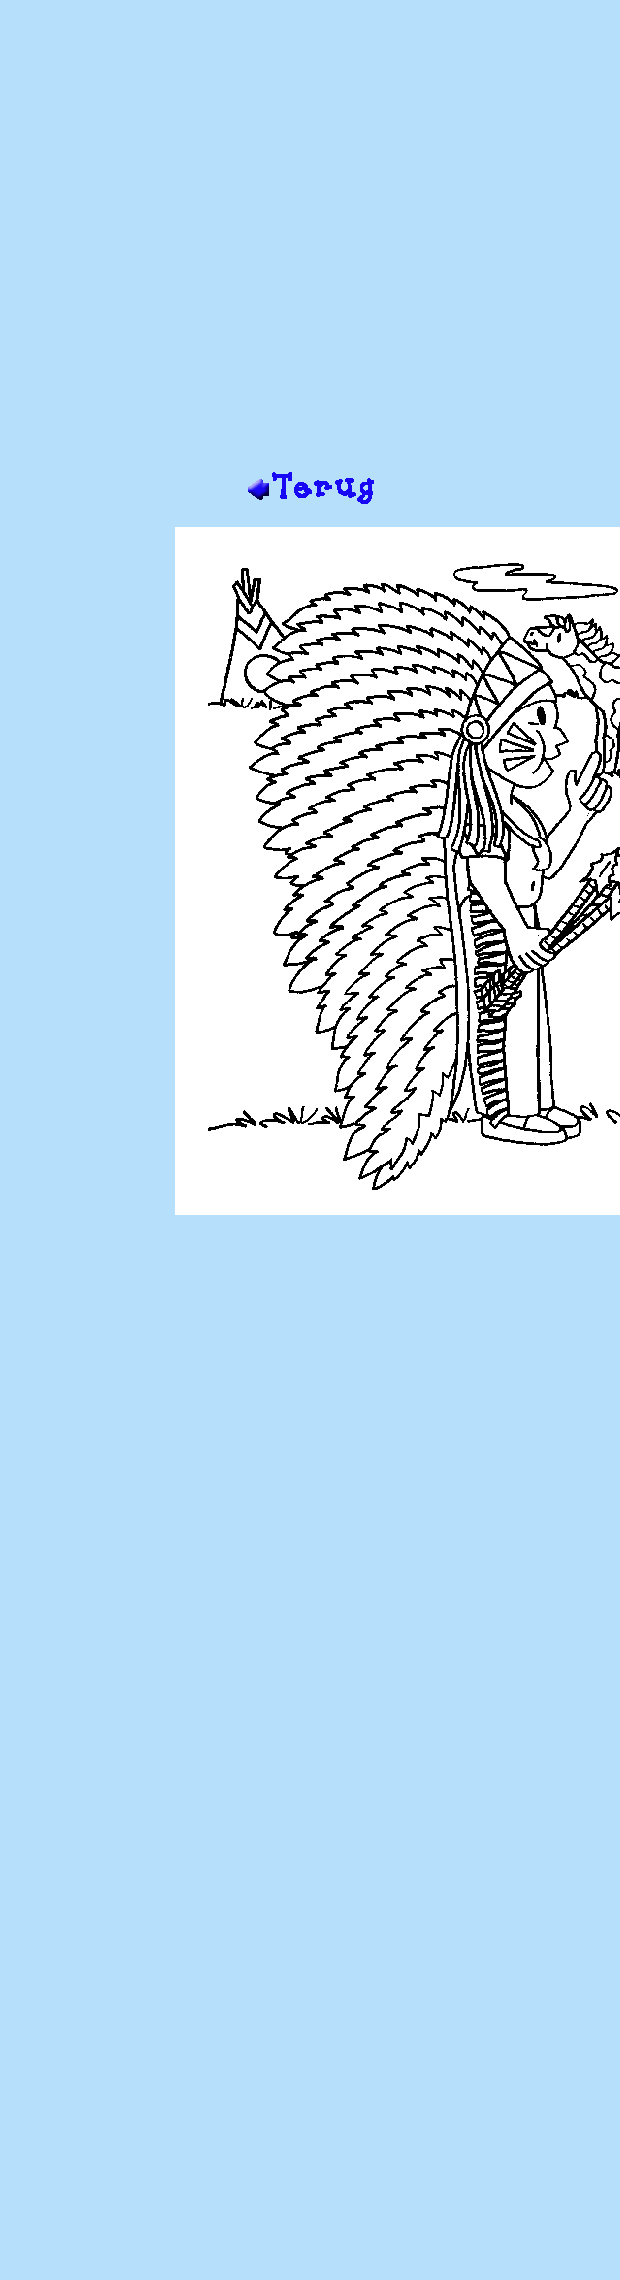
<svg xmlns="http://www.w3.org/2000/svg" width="620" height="2280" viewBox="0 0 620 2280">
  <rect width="100%" height="100%" fill="#b6dffb"/>
  <image x="248" y="472" width="126" height="32" href="images/1.png"/>
  <image x="175" y="527" width="445" height="688" href="images/2.png"/>
</svg>
